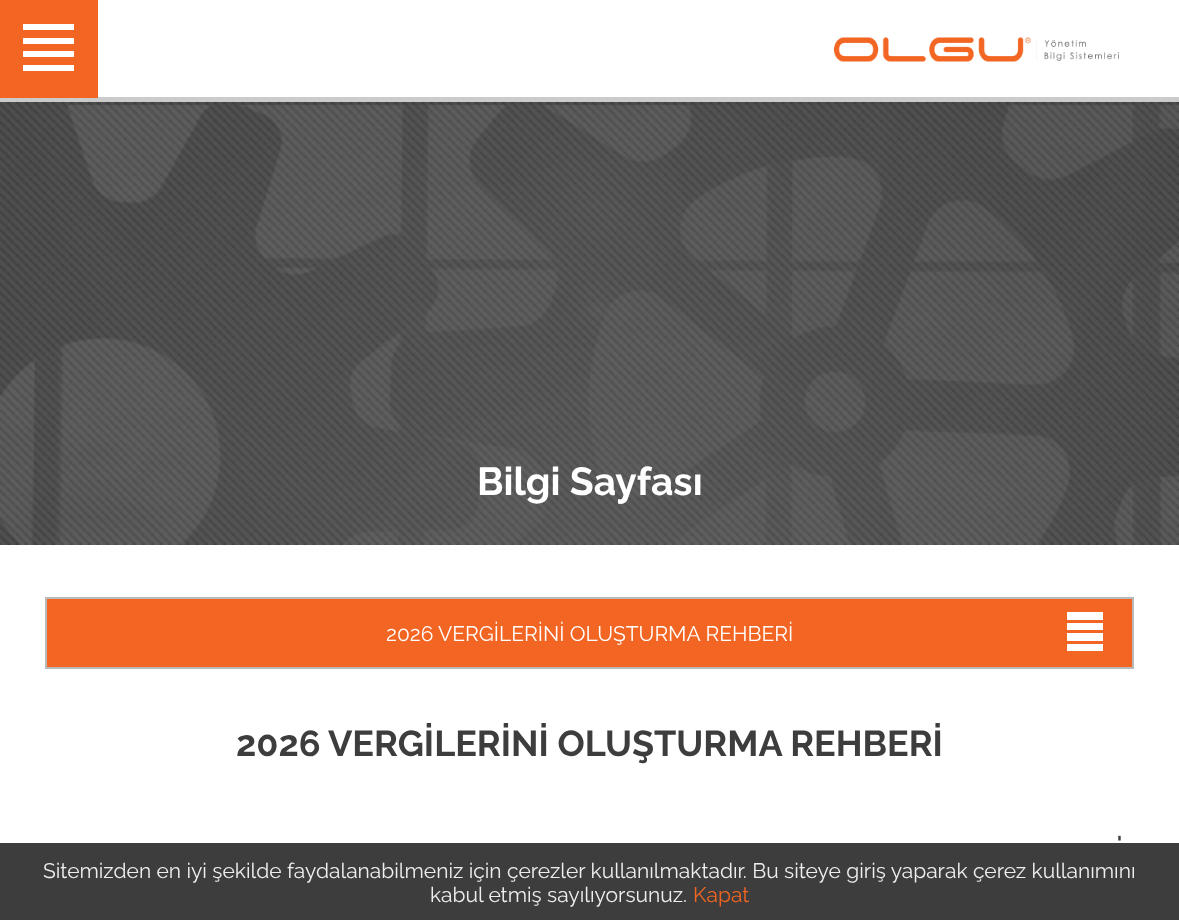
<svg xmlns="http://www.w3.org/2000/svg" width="1179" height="920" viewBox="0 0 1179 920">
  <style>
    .t1 { font: bold 39px Raleway; fill: #fff; }
    .t2 { font: 21px Raleway; fill: #fff; }
    .t3 { font: bold 36px Raleway; fill: #3d3d3d; }
    .t4 { font: bold 21px Raleway; fill: #3d3d3d; }
    .t5 { font: 21px Raleway; fill: #eee; }
    .t6 { font: 21px Raleway; fill: #f26522; }
  </style>
  <rect width="100%" height="100%" fill="#fff"/>
  <rect x="0" y="97" width="1179" height="5" fill="#cbcbcb"/>
  <rect x="0" y="0" width="98" height="98" fill="#f26522"/>
  <rect x="23" y="24" width="51" height="6" fill="#fff"/>
  <rect x="23" y="38" width="51" height="6" fill="#fff"/>
  <rect x="23" y="51" width="51" height="6" fill="#fff"/>
  <rect x="23" y="65" width="51" height="6" fill="#fff"/>
  <image x="834" y="37" width="285" height="25" href="images/1.png"/>
  <image x="0" y="102" width="1179" height="443" href="images/2.png"/>
  <text x="477" y="495" class="t1">Bilgi Sayfası</text>
  <rect x="46" y="598" width="1087" height="70" fill="#f26522" stroke="#bababa" stroke-width="2"/>
  <text x="386" y="641" class="t2">2026 VERGİLERİNİ OLUŞTURMA REHBERİ</text>
  <rect x="1067" y="612" width="36" height="8" fill="#fff"/>
  <rect x="1067" y="623" width="36" height="7" fill="#fff"/>
  <rect x="1067" y="633" width="36" height="8" fill="#fff"/>
  <rect x="1067" y="644" width="36" height="7" fill="#fff"/>
  <text x="236" y="756" class="t3">2026 VERGİLERİNİ OLUŞTURMA REHBERİ</text>
  <text x="1117" y="851" word-spacing="8" class="t4">'</text>
  <rect x="0" y="843" width="1179" height="77" fill="#3d3d3d"/>
  <text x="43" y="878" class="t5">Sitemizden en iyi şekilde faydalanabilmeniz için çerezler kullanılmaktadır. Bu siteye giriş yaparak çerez kullanımını</text>
  <text x="430" y="902" class="t5">kabul etmiş sayılıyorsunuz.</text>
  <text x="693" y="902" class="t6">Kapat</text>
</svg>
